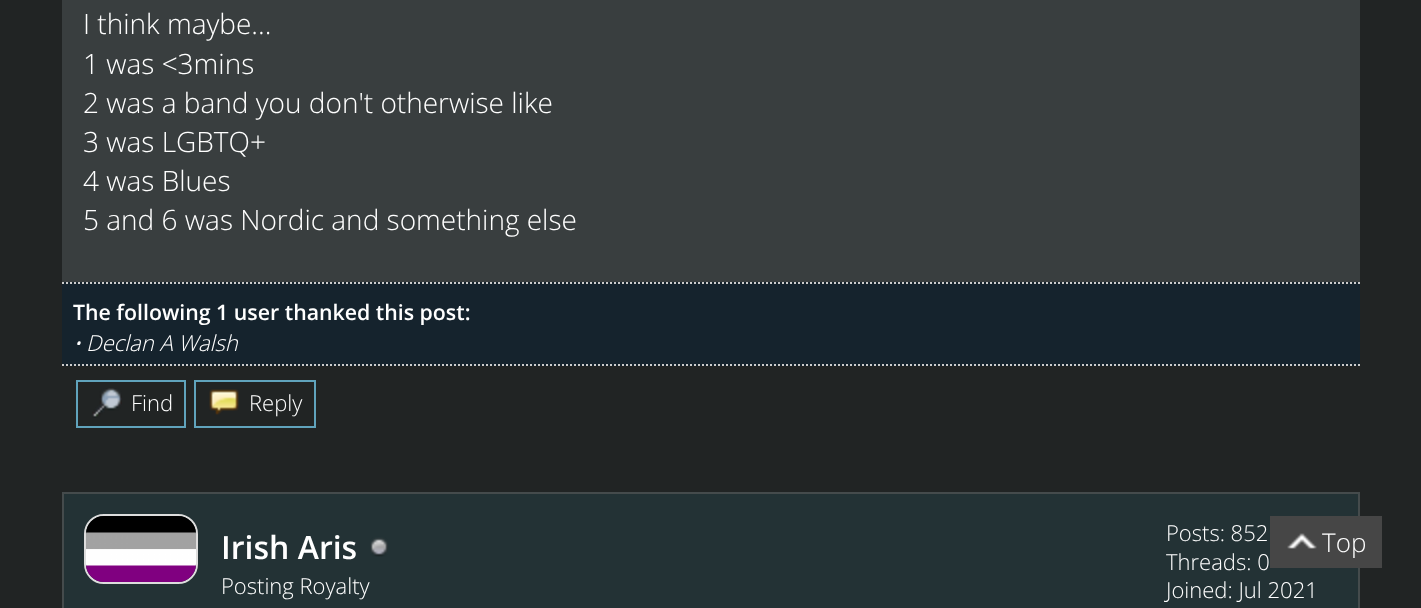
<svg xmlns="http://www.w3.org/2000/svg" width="1421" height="608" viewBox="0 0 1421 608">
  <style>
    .t1 { font: 300 28px Open Sans; fill: #fff; }
    .t2 { font: 600 21.3px Open Sans; fill: #fff; }
    .t3 { font: italic 300 21.3px Open Sans; fill: #fff; }
    .t4 { font: italic 300 22px Open Sans; fill: #fff; }
    .t5 { font: 300 22px Open Sans; fill: #fff; }
    .t6 { font: 600 32px Open Sans; fill: #fff; }
    .t7 { font: 300 26px Open Sans; fill: #fff; }
  </style>
  <rect width="100%" height="100%" fill="#212424"/>
  <rect x="62" y="0" width="1298" height="282" fill="#393e3f"/>
  <text x="83" y="34" class="t1">I think maybe...</text>
  <text x="83" y="74" class="t1">1 was &lt;3mins</text>
  <text x="83" y="113" class="t1">2 was a band you don't otherwise like</text>
  <text x="83" y="152" class="t1">3 was LGBTQ+</text>
  <text x="83" y="191" class="t1">4 was Blues</text>
  <text x="83" y="230" class="t1">5 and 6 was Nordic and something else</text>
  <rect x="62" y="282" width="1298" height="84" fill="#15232d"/>
  <path d="M62 283H1360" fill="none" stroke="#ccc" stroke-width="2" stroke-dasharray="2 2"/>
  <path d="M62 365H1360" fill="none" stroke="#ccc" stroke-width="2" stroke-dasharray="2 2"/>
  <text x="73" y="320" class="t2">The following 1 user thanked this post:</text>
  <text x="73" y="351" class="t3">•</text>
  <text x="86" y="351" class="t4">Declan A Walsh</text>
  <rect x="77" y="381" width="108" height="46" fill="none" stroke="#60a3bc" stroke-width="2"/>
  <image x="92" y="388" width="30" height="30" href="images/1.png"/>
  <text x="131" y="411" class="t5">Find</text>
  <rect x="195" y="381" width="120" height="46" fill="none" stroke="#60a3bc" stroke-width="2"/>
  <image x="209" y="389" width="30" height="26" href="images/2.png"/>
  <text x="249" y="411" class="t5">Reply</text>
  <rect x="63" y="493" width="1296" height="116" fill="#233235" stroke="#454b4c" stroke-width="2"/>
  <rect x="85" y="515" width="112" height="68" rx="19" fill="none" stroke="#ddd" stroke-width="2"/>
  <image x="86" y="516" width="110" height="66" href="images/3.png"/>
  <text x="221" y="559" class="t6">Irish Aris</text>
  <image x="370" y="537" width="18" height="20" href="images/4.png"/>
  <text x="221" y="594" class="t5">Posting Royalty</text>
  <text x="1166" y="541" class="t5">Posts: 852</text>
  <text x="1166" y="570" class="t5">Threads: 0</text>
  <text x="1166" y="598" class="t5">Joined: Jul 2021</text>
  <rect x="1270" y="516" width="112" height="52" fill="#464646"/>
  <image x="1287" y="533" width="30" height="16" href="images/5.png"/>
  <text x="1322" y="552" class="t7">Top</text>
</svg>
